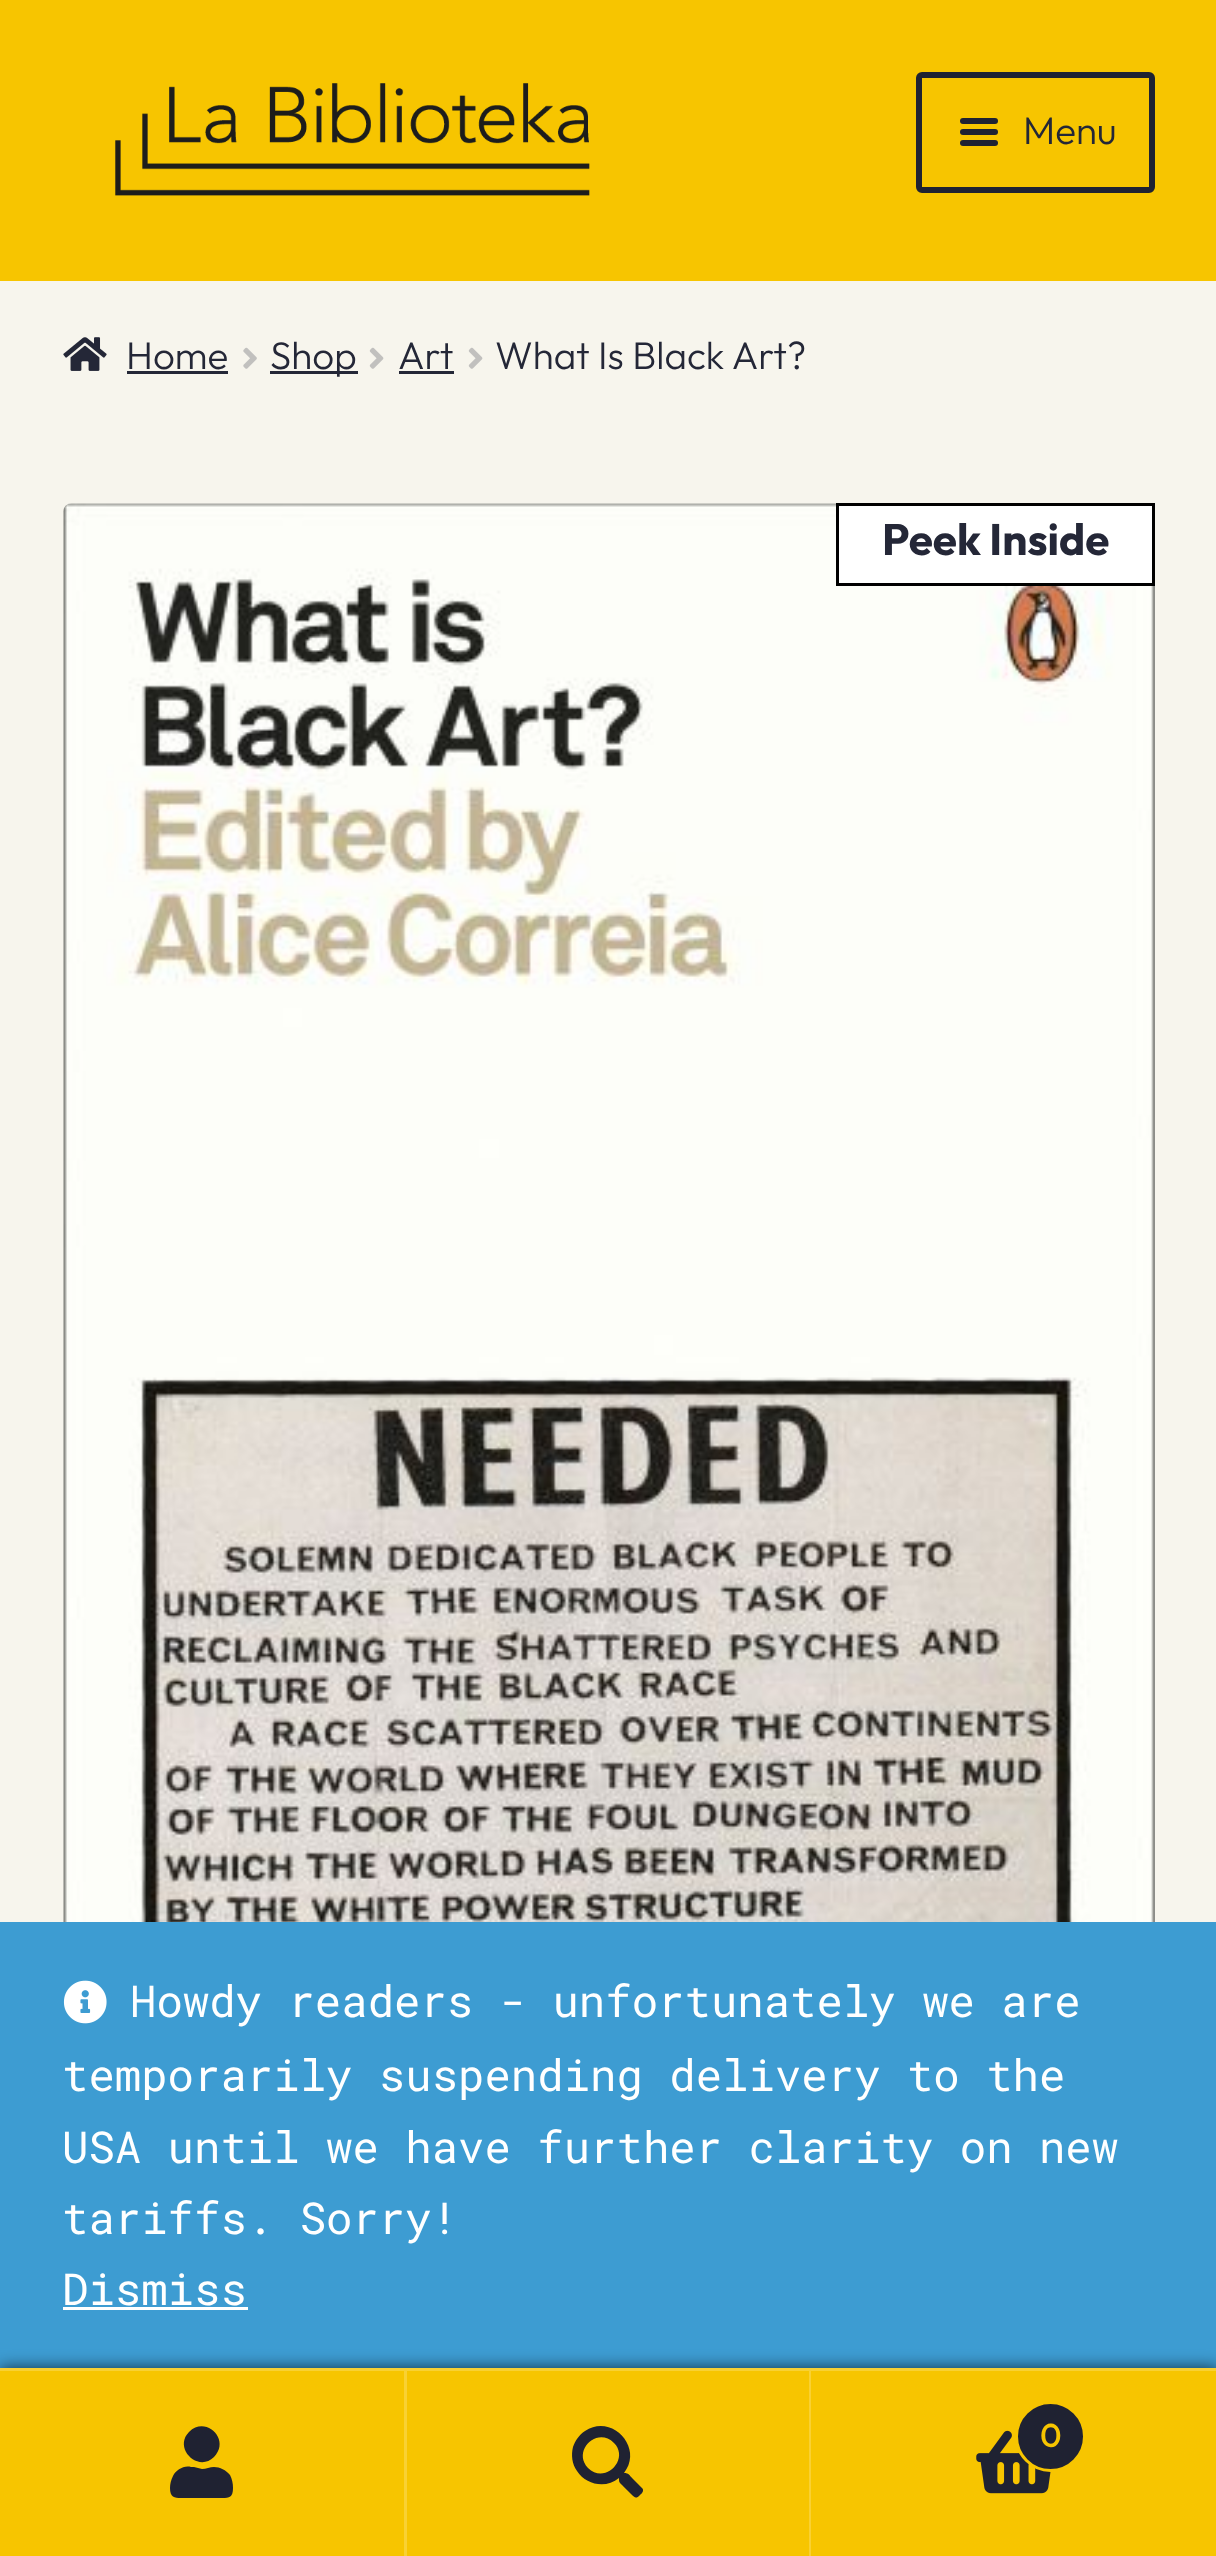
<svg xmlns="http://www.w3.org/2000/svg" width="1216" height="2556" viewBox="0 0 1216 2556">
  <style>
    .t1 { font: 300 38.5px Outfit; fill: #242737; }
    .t2 { font: bold 44px Outfit; fill: #242737; }
    .t3 { font: 500 33px Outfit; fill: #f7c500; }
    .t4 { font: 44px Roboto Mono; fill: #fff; }
  </style>
  <rect width="100%" height="100%" fill="#f7f5ed"/>
  <rect x="0" y="0" width="1216" height="281" fill="#f7c500"/>
  <image x="115" y="83" width="475" height="113" href="images/1.png"/>
  <rect x="919" y="75" width="233" height="115" rx="3" fill="none" stroke="#1f2232" stroke-width="6"/>
  <rect x="960" y="118" width="38" height="6" rx="3" fill="#1f2232"/>
  <rect x="960" y="129" width="38" height="6" rx="3" fill="#1f2232"/>
  <text x="1023" y="144" class="t1">Menu</text>
  <rect x="960" y="140" width="38" height="6" rx="3" fill="#1f2232"/>
  <image x="63" y="337" width="44" height="34" href="images/2.png"/>
  <text x="126" y="369" class="t1">Home</text>
  <rect x="127" y="371" width="101" height="3" fill="#242737"/>
  <image x="243" y="347" width="14" height="22" href="images/3.png"/>
  <rect x="270" y="371" width="88" height="3" fill="#242737"/>
  <text x="270" y="369" class="t1">Shop</text>
  <image x="369" y="347" width="15" height="22" href="images/4.png"/>
  <text x="398" y="369" class="t1">Art</text>
  <rect x="399" y="371" width="55" height="3" fill="#242737"/>
  <image x="468" y="347" width="15" height="22" href="images/4.png"/>
  <text x="495" y="369" class="t1">What Is Black Art?</text>
  <image x="63" y="503" width="1092" height="1419" href="images/5.png"/>
  <rect x="837.5" y="504.5" width="316" height="80" fill="#fff" stroke="#000" stroke-width="3"/>
  <text x="882" y="555" class="t2">Peek Inside</text>
  <rect x="0" y="1922" width="1216" height="446" fill="#3d9cd2"/>
  <rect x="0" y="2368" width="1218" height="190" fill="#000000b3" filter="blur(8px)"/>
  <rect x="0" y="2371" width="404" height="185" fill="#f7c500"/>
  <rect x="0" y="2368" width="1216" height="3" fill="#f9d133"/>
  <rect x="404" y="2371" width="3" height="185" fill="#f9d133"/>
  <path d="M214 2457C198 2473 173 2448 189 2432C206 2415 231 2440 214 2457ZM214 2467C220 2467 226 2470 230 2475C232 2479 233 2483 233 2488C233 2499 228 2498 218 2498H185C176 2498 170 2499 170 2488C170 2484 171 2480 173 2476C176 2470 184 2465 191 2467H194L202 2469C206 2469 210 2467 214 2467Z" fill="#1f2232"/>
  <rect x="407" y="2371" width="402" height="185" fill="#f7c500"/>
  <rect x="809" y="2371" width="2" height="185" fill="#f9d133"/>
  <path d="M642 2488C645 2491 641 2494 640 2495C636 2499 635 2498 631 2494L622 2485C619 2482 619 2482 619 2478C606 2489 586 2485 577 2471C572 2464 571 2455 573 2447C575 2441 579 2435 585 2431C612 2413 644 2448 624 2473C629 2473 629 2475 633 2479ZM588 2468C605 2485 630 2459 614 2443C597 2426 572 2451 588 2468Z" fill="#1f2232"/>
  <rect x="811" y="2371" width="405" height="185" fill="#f7c500"/>
  <image x="976" y="2430" width="75" height="64" href="images/6.png"/>
  <circle cx="1050.5" cy="2436.5" r="34" fill="#1f2232" stroke="#f7c500" stroke-width="3"/>
  <text x="1040" y="2447" class="t3">0</text>
  <image x="63" y="1980" width="44" height="44" href="images/7.png"/>
  <text x="130" y="2017" class="t4">Howdy readers - unfortunately we are</text>
  <text x="62" y="2091" class="t4">temporarily suspending delivery to the</text>
  <text x="62" y="2163" class="t4">USA until we have further clarity on new</text>
  <text x="62" y="2234" class="t4">tariffs. Sorry!</text>
  <text x="62" y="2305" class="t4">Dismiss</text>
  <rect x="63" y="2307" width="185" height="3" fill="#fff"/>
</svg>
